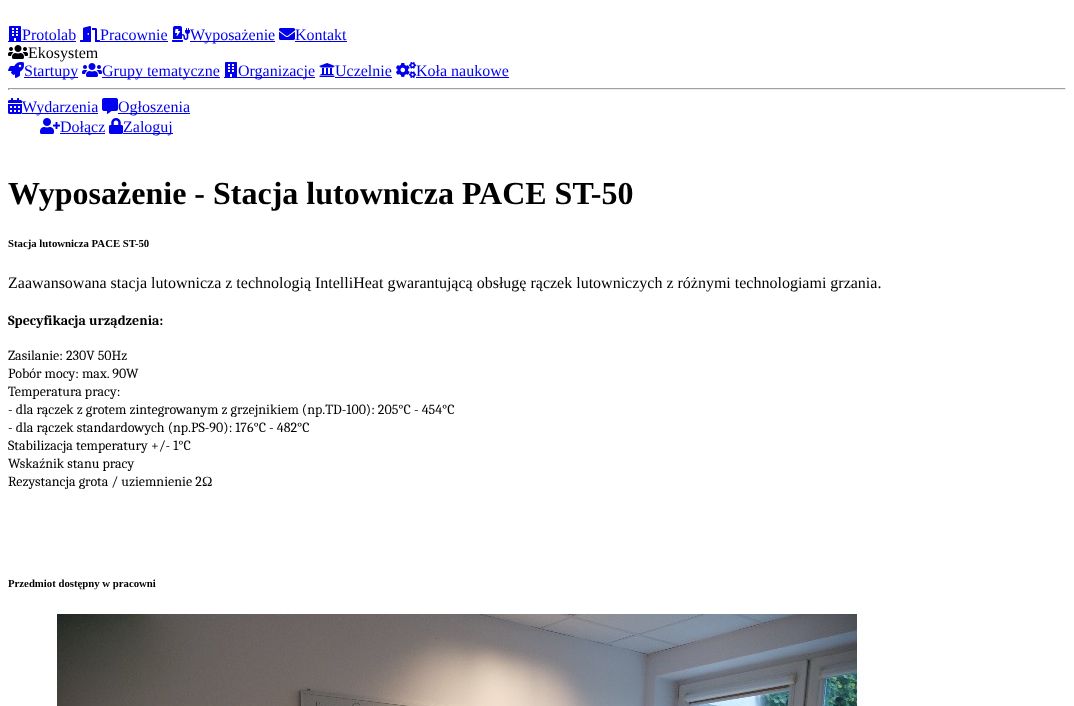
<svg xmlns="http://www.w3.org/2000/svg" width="1074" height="706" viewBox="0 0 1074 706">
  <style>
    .t1 { font: 16px Liberation Serif; fill: #00e; }
    .t2 { font: 16px Liberation Serif; fill: #000; }
    .t3 { font: bold 32px Liberation Serif; fill: #000; }
    .t4 { font: bold 10.75px Liberation Serif; fill: #000; }
    .t5 { font: bold 14px Caladea; fill: #000; }
    .t6 { font: 14px Caladea; fill: #000; }
    .t7 { font: 14px Liberation Serif; fill: #000; }
  </style>
  <rect width="100%" height="100%" fill="#fff"/>
  <image x="8" y="26" width="14" height="16" href="images/1.png"/>
  <text x="22" y="40" class="t1">Protolab</text>
  <rect x="22" y="41" width="54" height="1" fill="#00e"/>
  <image x="80" y="26" width="20" height="16" href="images/2.png"/>
  <text x="100" y="40" class="t1">Pracownie</text>
  <rect x="100" y="41" width="68" height="1" fill="#00e"/>
  <image x="172" y="26" width="18" height="16" href="images/3.png"/>
  <rect x="190" y="41" width="85" height="1" fill="#00e"/>
  <text x="190" y="40" class="t1">Wyposażenie</text>
  <image x="279" y="28" width="16" height="12" href="images/4.png"/>
  <text x="295" y="40" class="t1">Kontakt</text>
  <rect x="295" y="41" width="52" height="1" fill="#00e"/>
  <image x="8" y="45" width="20" height="14" href="images/5.png"/>
  <text x="28" y="58" class="t2">Ekosystem</text>
  <image x="8" y="62" width="16" height="16" href="images/6.png"/>
  <rect x="24" y="77" width="54" height="1" fill="#00e"/>
  <text x="24" y="76" class="t1">Startupy</text>
  <image x="82" y="63" width="20" height="14" href="images/7.png"/>
  <rect x="102" y="77" width="118" height="1" fill="#00e"/>
  <text x="102" y="76" class="t1">Grupy tematyczne</text>
  <image x="224" y="62" width="14" height="16" href="images/1.png"/>
  <rect x="238" y="77" width="77" height="1" fill="#00e"/>
  <text x="238" y="76" class="t1">Organizacje</text>
  <image x="319" y="63" width="16" height="14" href="images/8.png"/>
  <text x="335" y="76" class="t1">Uczelnie</text>
  <rect x="335" y="77" width="57" height="1" fill="#00e"/>
  <image x="396" y="62" width="20" height="16" href="images/9.png"/>
  <text x="416" y="76" class="t1">Koła naukowe</text>
  <rect x="416" y="77" width="93" height="1" fill="#00e"/>
  <rect x="8" y="88" width="1058" height="1" fill="#9f9f9f"/>
  <rect x="1065" y="88" width="1" height="2" fill="#eee"/>
  <rect x="8" y="89" width="1058" height="1" fill="#eee"/>
  <rect x="8" y="88" width="1" height="2" fill="#9f9f9f"/>
  <image x="8" y="98" width="14" height="16" href="images/10.png"/>
  <rect x="22" y="113" width="76" height="1" fill="#00e"/>
  <text x="22" y="112" class="t1">Wydarzenia</text>
  <image x="102" y="98" width="16" height="16" href="images/11.png"/>
  <rect x="118" y="113" width="72" height="1" fill="#00e"/>
  <text x="118" y="112" class="t1">Ogłoszenia</text>
  <image x="40" y="118" width="20" height="16" href="images/12.png"/>
  <rect x="60" y="133" width="45" height="1" fill="#00e"/>
  <text x="60" y="132" class="t1">Dołącz</text>
  <image x="109" y="118" width="14" height="16" href="images/13.png"/>
  <rect x="123" y="133" width="50" height="1" fill="#00e"/>
  <text x="123" y="132" class="t1">Zaloguj</text>
  <text x="8" y="204" class="t3">Wyposażenie - Stacja lutownicza PACE ST-50</text>
  <text x="8" y="247" class="t4">Stacja lutownicza PACE ST-50</text>
  <text x="8" y="288" class="t2">Zaawansowana stacja lutownicza z technologią IntelliHeat gwarantującą obsługę rączek lutowniczych z różnymi technologiami grzania.</text>
  <text x="8" y="325" class="t5">Specyfikacja urządzenia:</text>
  <text x="8" y="360" class="t6">Zasilanie: 230V 50Hz</text>
  <text x="8" y="378" class="t6">Pobór mocy: max. 90W</text>
  <text x="8" y="396" class="t6">Temperatura pracy:</text>
  <text x="8" y="414" class="t6">- dla rączek z grotem zintegrowanym z grzejnikiem (np.TD-100): 205°C - 454°C</text>
  <text x="8" y="432" class="t6">- dla rączek standardowych (np.PS-90): 176°C - 482°C</text>
  <text x="8" y="450" class="t6">Stabilizacja temperatury +/- 1°C</text>
  <text x="8" y="468" class="t6">Wskaźnik stanu pracy</text>
  <text x="8" y="486" class="t6">Rezystancja grota / uziemnienie 2</text>
  <text x="202" y="486" class="t7">Ω</text>
  <text x="8" y="587" class="t4">Przedmiot dostępny w pracowni</text>
  <image x="56" y="614" width="808" height="92" href="images/14.png"/>
</svg>
